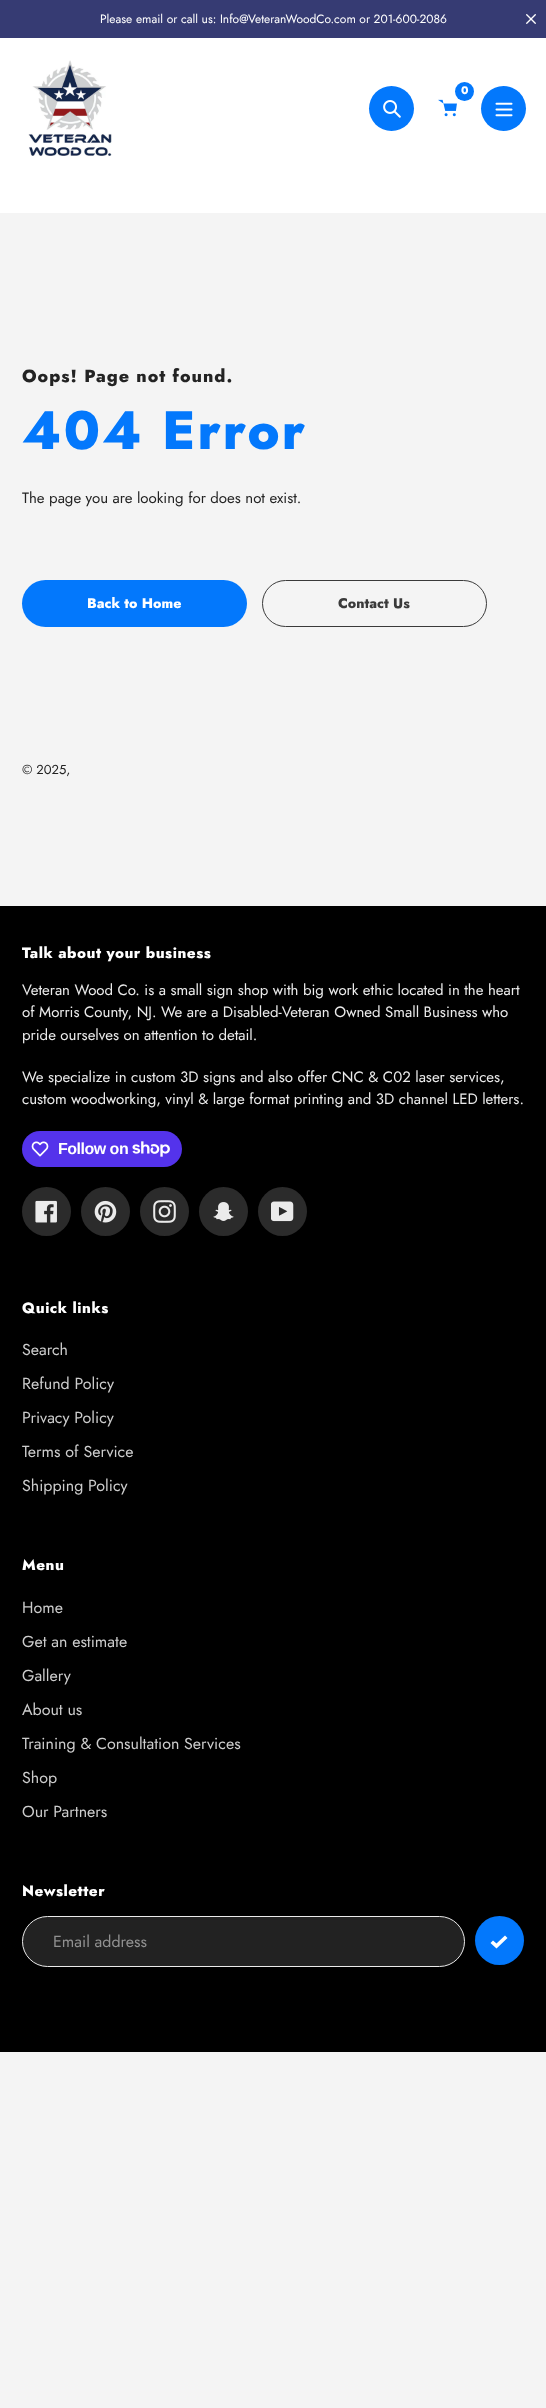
<svg xmlns="http://www.w3.org/2000/svg" width="546" height="2408" viewBox="0 0 546 2408">
  <style>
    .t1 { font: 12px Jost; fill: #fff; }
    .t2 { font: 800 11px Jost; fill: #fff; }
    .t3 { font: 800 17.6px Jost; letter-spacing: 1px; fill: #232323; }
    .t4 { font: 800 54px Jost; letter-spacing: 2px; fill: #0378fc; }
    .t5 { font: 15px Jost; fill: #232323; }
    .t6 { font: 800 14px Jost; fill: #fff; }
    .t7 { font: 800 14px Jost; fill: #3a3a3a; }
    .t8 { font: 13px Jost; fill: #232323; }
    .t9 { font: 800 15px Jost; letter-spacing: 0.5px; fill: #fff; }
    .t10 { font: 15px Jost; fill: #ebebeb; }
    .t11 { font: bold 16px Liberation Sans; letter-spacing: -0.5px; fill: #fff; }
    .t12 { font: 16px Jost; fill: #ccc; }
    .t13 { font: 16px Jost; fill: #919191; }
  </style>
  <rect width="100%" height="100%" fill="#f4f4f4"/>
  <rect x="0" y="0" width="546" height="38" fill="#363b73"/>
  <text x="100" y="23" class="t1">Please email or call us: Info@VeteranWoodCo.com or 201-600-2086</text>
  <image x="526" y="14" width="10" height="10" href="images/1.png"/>
  <rect x="0" y="38" width="546" height="175" fill="#fff"/>
  <image x="28" y="60" width="84" height="96" href="images/2.png"/>
  <circle cx="391.5" cy="108.5" r="22.5" fill="#0378fc"/>
  <image x="383" y="100" width="18" height="18" href="images/3.png"/>
  <image x="438" y="99" width="19" height="18" href="images/4.png"/>
  <circle cx="464.5" cy="91.5" r="9.5" fill="#0378fc"/>
  <text x="461" y="94" class="t2">0</text>
  <circle cx="503.5" cy="108.5" r="22.5" fill="#0378fc"/>
  <image x="495" y="102" width="18" height="15" href="images/5.png"/>
  <text x="22" y="382" class="t3">Oops! Page not found.</text>
  <text x="22" y="449" class="t4">404 Error</text>
  <text x="22" y="503" class="t5">The page you are looking for does not exist.</text>
  <rect x="22" y="580" width="225" height="47" rx="23.5" fill="#0378fc"/>
  <text x="87" y="608" class="t6">Back to Home</text>
  <rect x="262.5" y="580.5" width="224" height="46" rx="23" fill="none" stroke="#3a3a3a"/>
  <text x="338" y="608" class="t7">Contact Us</text>
  <text x="22" y="774" class="t8">© 2025,</text>
  <rect x="0" y="906" width="546" height="1146" fill="#000"/>
  <text x="22" y="958" class="t9">Talk about your business</text>
  <text x="22" y="995" class="t10">Veteran Wood Co. is a small sign shop with big work ethic located in the heart</text>
  <text x="22" y="1017" class="t10">of Morris County, NJ. We are a Disabled-Veteran Owned Small Business who</text>
  <text x="22" y="1040" class="t10">pride ourselves on attention to detail.</text>
  <text x="22" y="1082" class="t10">We specialize in custom 3D signs and also offer CNC &amp; C02 laser services,</text>
  <text x="22" y="1104" class="t10">custom woodworking, vinyl &amp; large format printing and 3D channel LED letters.</text>
  <rect x="22" y="1131" width="160" height="36" rx="18" fill="#5433eb"/>
  <image x="31" y="1141" width="18" height="16" href="images/6.png"/>
  <text x="58" y="1154" class="t11">Follow on</text>
  <image x="132" y="1141" width="38" height="16" href="images/7.png"/>
  <circle cx="46.5" cy="1211.5" r="24.5" fill="#2b2b2b"/>
  <image x="35" y="1200" width="22" height="23" href="images/8.png"/>
  <circle cx="105.5" cy="1211.5" r="24.5" fill="#2b2b2b"/>
  <image x="94" y="1200" width="23" height="23" href="images/9.png"/>
  <circle cx="164.5" cy="1211.5" r="24.5" fill="#2b2b2b"/>
  <image x="153" y="1200" width="23" height="23" href="images/10.png"/>
  <circle cx="223.5" cy="1211.5" r="24.5" fill="#2b2b2b"/>
  <image x="213" y="1202" width="21" height="19" href="images/11.png"/>
  <circle cx="282.5" cy="1211.5" r="24.5" fill="#2b2b2b"/>
  <image x="271" y="1201" width="23" height="21" href="images/12.png"/>
  <text x="22" y="1313" class="t9">Quick links</text>
  <text x="22" y="1355" class="t12">Search</text>
  <text x="22" y="1389" class="t12">Refund Policy</text>
  <text x="22" y="1423" class="t12">Privacy Policy</text>
  <text x="22" y="1457" class="t12">Terms of Service</text>
  <text x="22" y="1491" class="t12">Shipping Policy</text>
  <text x="22" y="1570" class="t9">Menu</text>
  <text x="22" y="1613" class="t12">Home</text>
  <text x="22" y="1647" class="t12">Get an estimate</text>
  <text x="22" y="1681" class="t12">Gallery</text>
  <text x="22" y="1715" class="t12">About us</text>
  <text x="22" y="1749" class="t12">Training &amp; Consultation Services</text>
  <text x="22" y="1783" class="t12">Shop</text>
  <text x="22" y="1817" class="t12">Our Partners</text>
  <text x="22" y="1896" class="t9">Newsletter</text>
  <rect x="22.5" y="1916.5" width="442" height="50" rx="25" fill="#222" stroke="#ebebeb"/>
  <text x="53" y="1947" class="t13">Email address</text>
  <circle cx="499.5" cy="1940.5" r="24.5" fill="#0378fc"/>
  <path d="M496.5 1948.5L490.5 1943L493 1940.5L496.5 1943.5L505 1935.5L507.5 1938Z" fill="#fff"/>
</svg>
